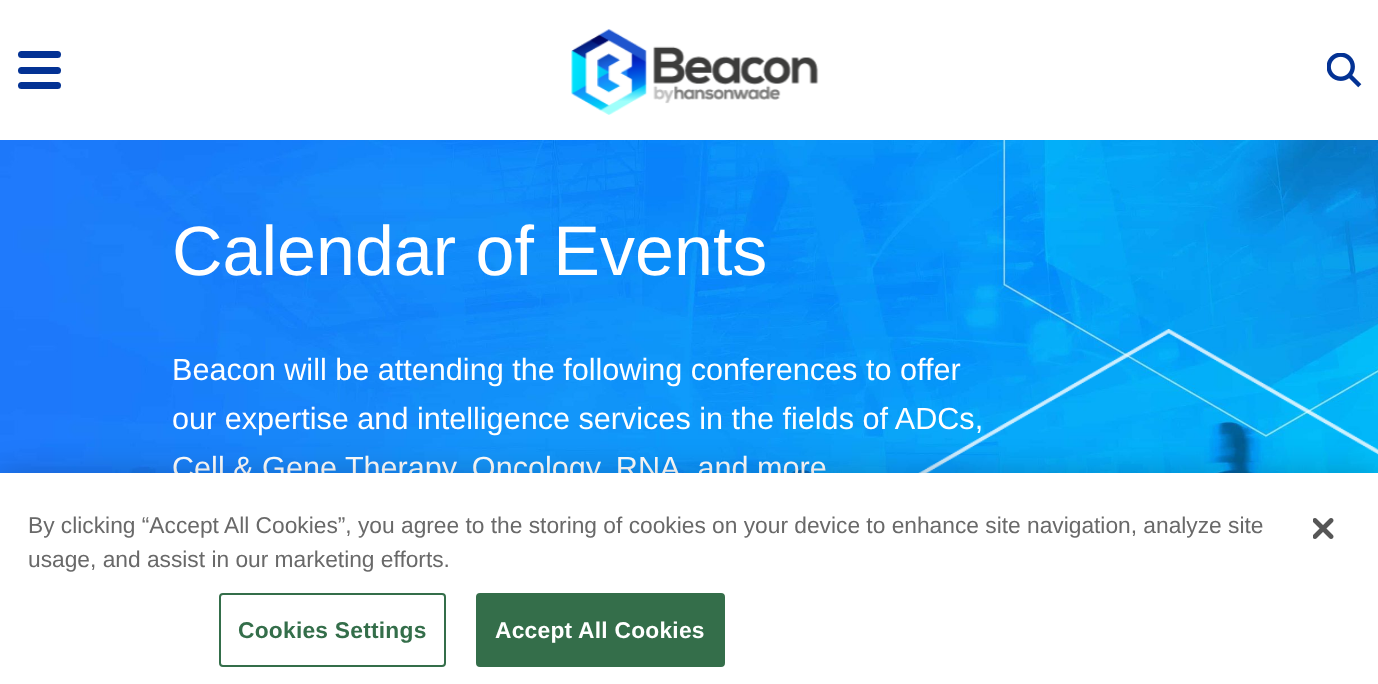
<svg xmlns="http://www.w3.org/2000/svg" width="1378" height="684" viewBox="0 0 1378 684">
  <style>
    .t1 { font: 70px Liberation Sans; fill: #fff; }
    .t2 { font: 30.6px Liberation Sans; fill: #fff; }
    .t3 { font: 22.75px Liberation Sans; fill: #696969; }
    .t4 { font: bold 22.75px Liberation Sans; letter-spacing: 0.25px; fill: #346e4a; }
    .t5 { font: bold 22.75px Liberation Sans; letter-spacing: 0.25px; fill: #fff; }
  </style>
  <rect width="100%" height="100%" fill="#fff"/>
  <rect x="18" y="51" width="43" height="7" rx="3.5" fill="#033294"/>
  <rect x="18" y="67" width="43" height="7" rx="3.5" fill="#033294"/>
  <rect x="18" y="82" width="43" height="7" rx="3.5" fill="#033294"/>
  <image x="571" y="29" width="248" height="86" href="images/1.png"/>
  <image x="1327" y="53" width="35" height="35" href="images/2.png"/>
  <image x="0" y="140" width="1378" height="333" href="images/3.png"/>
  <text x="172" y="275" class="t1">Calendar of Events</text>
  <image x="918" y="329" width="460" height="144" href="images/4.png"/>
  <text x="172" y="380" class="t2">Beacon will be attending the following conferences to offer</text>
  <text x="172" y="429" class="t2">our expertise and intelligence services in the fields of ADCs,</text>
  <text x="172" y="478" class="t2">Cell &amp; Gene Therapy, Oncology, RNA, and more</text>
  <rect x="0" y="473" width="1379" height="211" fill="#00000033" filter="blur(16px)"/>
  <rect x="0" y="473" width="1378" height="211" fill="#fff"/>
  <text x="28" y="533" class="t3">By clicking “Accept All Cookies”, you agree to the storing of cookies on your device to enhance site navigation, analyze site</text>
  <text x="28" y="567" class="t3">usage, and assist in our marketing efforts.</text>
  <rect x="220" y="594" width="225" height="72" rx="3" fill="none" stroke="#346e4a" stroke-width="2"/>
  <text x="238" y="638" class="t4">Cookies Settings</text>
  <rect x="477" y="594" width="247" height="72" rx="3" fill="#346e4a" stroke="#346e4a" stroke-width="2"/>
  <text x="495" y="638" class="t5">Accept All Cookies</text>
  <image x="1313" y="518" width="21" height="21" href="images/5.png"/>
</svg>
